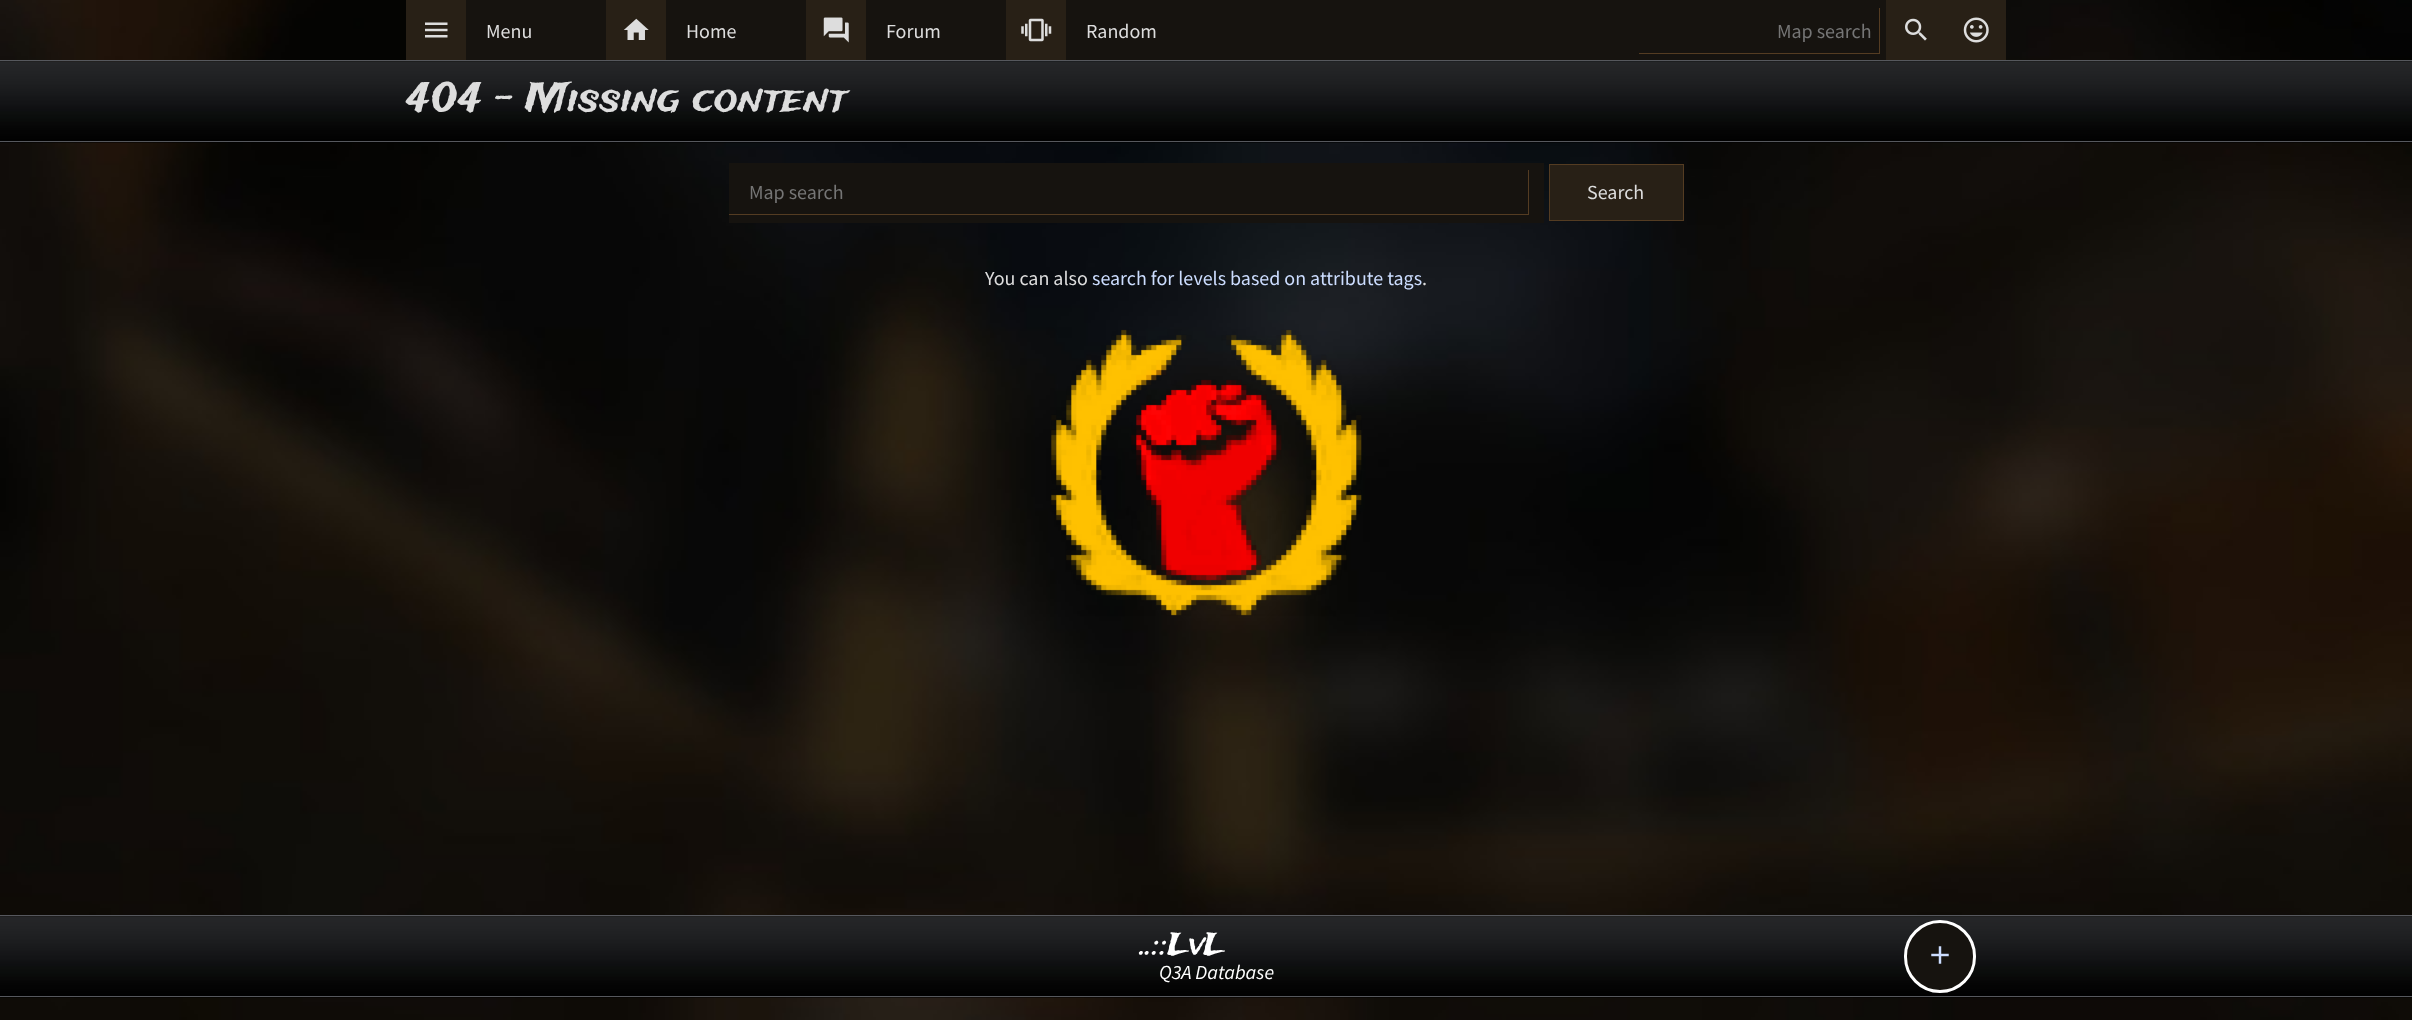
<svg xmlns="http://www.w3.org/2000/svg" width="2412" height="1020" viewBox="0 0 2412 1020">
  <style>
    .t1 { font: 20px Source Sans Pro; fill: #ddd; }
    .t2 { font: 20px Source Sans Pro; fill: #757575; }
    .t3 { font: 40px Trade Winds; fill: #ddd; }
    .t4 { font: 20px Source Sans Pro; fill: #cdf; }
    .t5 { font: 30px Trade Winds; fill: #fff; }
    .t6 { font: italic 20px Source Sans Pro; fill: #fff; }
  </style>
  <rect width="100%" height="100%" fill="#fff"/>
  <image x="0" y="0" width="2412" height="1020" href="images/1.png"/>
  <rect x="466" y="0" width="1420" height="60" fill="#16130f"/>
  <rect x="406" y="0" width="60" height="60" fill="#282016"/>
  <image x="425" y="22" width="23" height="16" href="images/2.png"/>
  <text x="486" y="38" class="t1">Menu</text>
  <rect x="606" y="0" width="60" height="60" fill="#282016"/>
  <image x="623" y="18" width="26" height="22" href="images/3.png"/>
  <text x="686" y="38" class="t1">Home</text>
  <rect x="806" y="0" width="60" height="60" fill="#282016"/>
  <image x="823" y="17" width="26" height="26" href="images/4.png"/>
  <text x="886" y="38" class="t1">Forum</text>
  <rect x="1006" y="0" width="60" height="60" fill="#282016"/>
  <image x="1021" y="18" width="31" height="24" href="images/5.png"/>
  <text x="1086" y="38" class="t1">Random</text>
  <rect x="1879" y="8" width="1" height="46" fill="#543c22"/>
  <rect x="1639" y="53" width="241" height="1" fill="#543c22"/>
  <text x="1777" y="38" class="t2">Map search</text>
  <rect x="1886" y="0" width="120" height="60" fill="#282016"/>
  <image x="1905" y="18" width="22" height="23" href="images/6.png"/>
  <image x="1963" y="17" width="26" height="26" href="images/7.png"/>
  <image x="0" y="61" width="2412" height="82" href="images/8.png"/>
  <rect x="0" y="60" width="2412" height="1" fill="#56585d"/>
  <rect x="0" y="141" width="2412" height="1" fill="#56585d"/>
  <text x="406" y="111" class="t3">404 - Missing content</text>
  <rect x="729" y="163" width="815" height="60" fill="#16130f"/>
  <rect x="1528" y="170" width="1" height="45" fill="#543c22"/>
  <rect x="729" y="214" width="800" height="1" fill="#543c22"/>
  <text x="749" y="199" class="t2">Map search</text>
  <rect x="1549.5" y="164.5" width="134" height="56" fill="#282016" stroke="#543c22"/>
  <text x="1587" y="199" class="t1">Search</text>
  <text x="985" y="285" class="t1">You can also</text>
  <text x="1092" y="285" class="t4">search for levels based on attribute tags</text>
  <text x="1422" y="285" class="t1">.</text>
  <image x="1051" y="329" width="311" height="287" href="images/9.png"/>
  <image x="0" y="916" width="2412" height="82" href="images/11.png"/>
  <rect x="1905.5" y="921.5" width="69" height="70" rx="34.5" fill="#16130f" stroke="#fff" stroke-width="3"/>
  <image x="1931" y="946" width="18" height="18" href="images/10.png"/>
  <rect x="0" y="915" width="2412" height="1" fill="#56585d"/>
  <rect x="0" y="996" width="2412" height="1" fill="#56585d"/>
  <text x="1141" y="954" class="t5">..::LvL</text>
  <text x="1159" y="979" class="t6">Q3A Database</text>
</svg>
